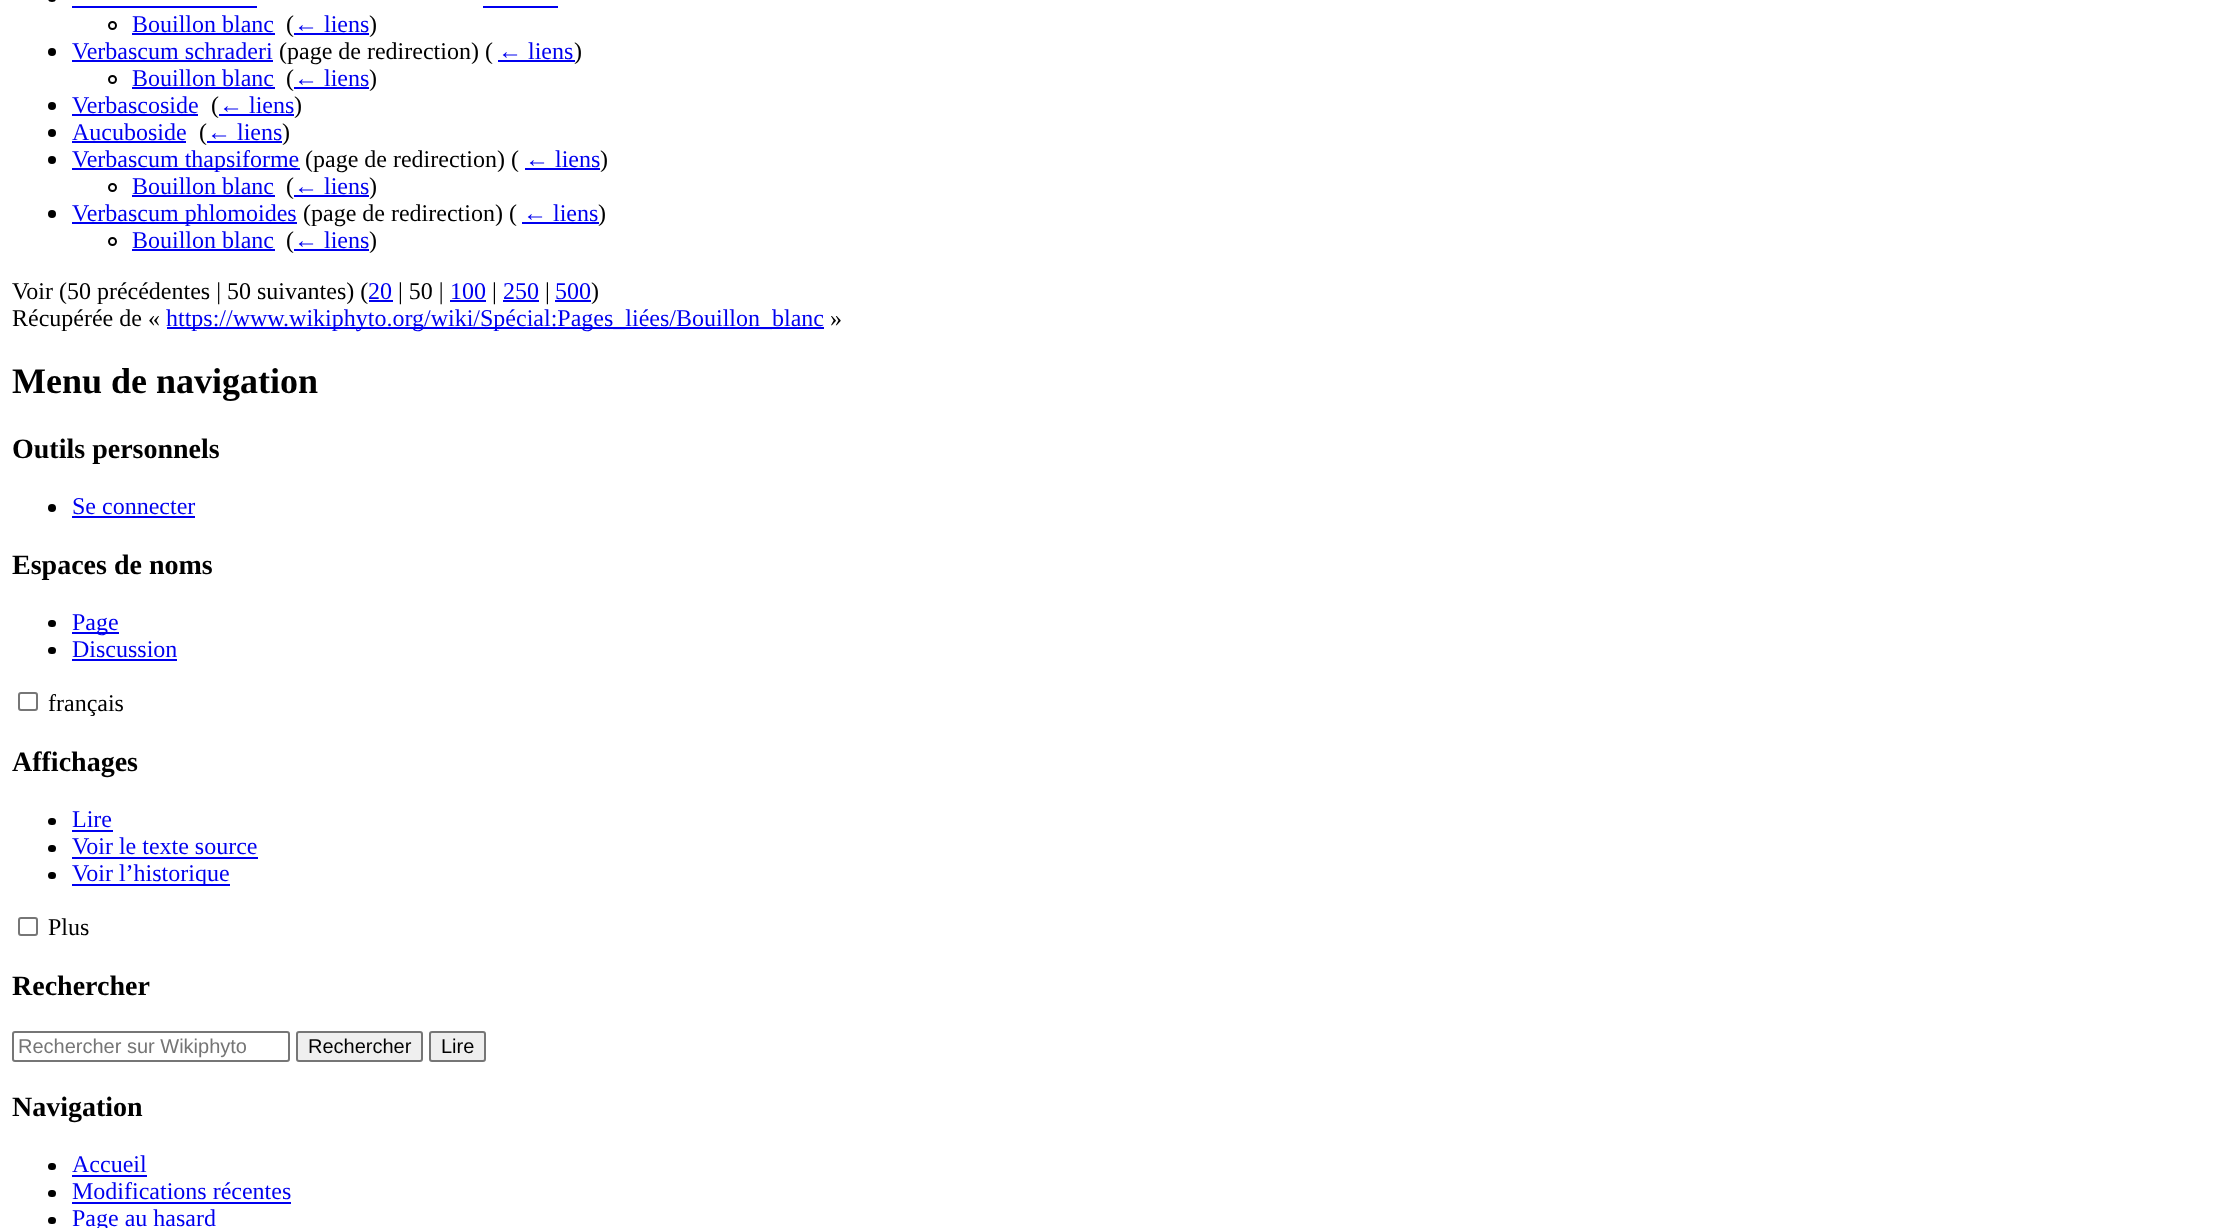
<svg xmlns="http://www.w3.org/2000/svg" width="2213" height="1228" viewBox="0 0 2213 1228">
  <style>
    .t1 { font: 24px Liberation Serif; fill: #00e; }
    .t2 { font: 24px Liberation Serif; fill: #000; }
    .t3 { font: bold 36px Liberation Serif; fill: #000; }
    .t4 { font: bold 28px Liberation Serif; fill: #000; }
    .t5 { font: 20px Liberation Sans; fill: #757575; }
    .t6 { font: 20px Liberation Sans; fill: #000; }
  </style>
  <rect width="100%" height="100%" fill="#fff"/>
  <rect x="48" y="-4" width="8" height="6" rx="4" fill="#000"/>
  <rect x="72" y="6" width="185" height="2" fill="#00e"/>
  <rect x="483" y="6" width="75" height="2" fill="#00e"/>
  <circle cx="112.5" cy="25.5" r="3.5" fill="none" stroke="#000" stroke-width="2"/>
  <text x="132" y="32" class="t1">Bouillon blanc</text>
  <rect x="132" y="33" width="143" height="2" fill="#00e"/>
  <text x="286" y="32" class="t2">(</text>
  <rect x="294" y="33" width="75" height="2" fill="#00e"/>
  <text x="294" y="32" class="t1">← liens</text>
  <text x="369" y="32" class="t2">)</text>
  <circle cx="52" cy="52" r="4" fill="#000"/>
  <text x="72" y="59" class="t1">Verbascum schraderi</text>
  <rect x="72" y="60" width="201" height="2" fill="#00e"/>
  <text x="279" y="59" class="t2">(page de redirection)  (</text>
  <text x="498" y="59" class="t1">← liens</text>
  <rect x="498" y="60" width="77" height="2" fill="#00e"/>
  <text x="574" y="59" class="t2">)</text>
  <circle cx="112.5" cy="79.5" r="3.5" fill="none" stroke="#000" stroke-width="2"/>
  <text x="132" y="86" class="t1">Bouillon blanc</text>
  <rect x="132" y="87" width="143" height="2" fill="#00e"/>
  <text x="286" y="86" class="t2">(</text>
  <rect x="294" y="87" width="75" height="2" fill="#00e"/>
  <text x="294" y="86" class="t1">← liens</text>
  <text x="369" y="86" class="t2">)</text>
  <circle cx="52" cy="106" r="4" fill="#000"/>
  <text x="72" y="113" class="t1">Verbascoside</text>
  <rect x="72" y="114" width="126" height="2" fill="#00e"/>
  <text x="211" y="113" class="t2">(</text>
  <text x="219" y="113" class="t1">← liens</text>
  <text x="294" y="113" class="t2">)</text>
  <rect x="219" y="114" width="75" height="2" fill="#00e"/>
  <circle cx="52" cy="133" r="4" fill="#000"/>
  <text x="72" y="140" class="t1">Aucuboside</text>
  <rect x="72" y="141" width="114" height="2" fill="#00e"/>
  <text x="199" y="140" class="t2">(</text>
  <text x="207" y="140" class="t1">← liens</text>
  <text x="282" y="140" class="t2">)</text>
  <rect x="207" y="141" width="75" height="2" fill="#00e"/>
  <circle cx="52" cy="160" r="4" fill="#000"/>
  <rect x="72" y="168" width="228" height="2" fill="#00e"/>
  <text x="72" y="167" class="t1">Verbascum thapsiforme</text>
  <text x="305" y="167" class="t2">(page de redirection)  (</text>
  <text x="525" y="167" class="t1">← liens</text>
  <text x="600" y="167" class="t2">)</text>
  <rect x="525" y="168" width="75" height="2" fill="#00e"/>
  <circle cx="112.5" cy="187.5" r="3.5" fill="none" stroke="#000" stroke-width="2"/>
  <text x="132" y="194" class="t1">Bouillon blanc</text>
  <rect x="132" y="195" width="143" height="2" fill="#00e"/>
  <text x="286" y="194" class="t2">(</text>
  <rect x="294" y="195" width="75" height="2" fill="#00e"/>
  <text x="294" y="194" class="t1">← liens</text>
  <text x="369" y="194" class="t2">)</text>
  <circle cx="52" cy="214" r="4" fill="#000"/>
  <rect x="72" y="222" width="225" height="2" fill="#00e"/>
  <text x="72" y="221" class="t1">Verbascum phlomoides</text>
  <text x="303" y="221" class="t2">(page de redirection)  (</text>
  <text x="523" y="221" class="t1">← liens</text>
  <rect x="522" y="222" width="77" height="2" fill="#00e"/>
  <text x="598" y="221" class="t2">)</text>
  <circle cx="112.5" cy="241.5" r="3.5" fill="none" stroke="#000" stroke-width="2"/>
  <text x="132" y="248" class="t1">Bouillon blanc</text>
  <rect x="132" y="249" width="143" height="2" fill="#00e"/>
  <text x="286" y="248" class="t2">(</text>
  <rect x="294" y="249" width="75" height="2" fill="#00e"/>
  <text x="294" y="248" class="t1">← liens</text>
  <text x="369" y="248" class="t2">)</text>
  <text x="12" y="299" class="t2">Voir (50 précédentes | 50 suivantes) (</text>
  <text x="368" y="299" class="t1">20</text>
  <rect x="369" y="300" width="24" height="2" fill="#00e"/>
  <text x="398" y="299" class="t2">| 50 |</text>
  <text x="450" y="299" class="t1">100</text>
  <rect x="450" y="300" width="36" height="2" fill="#00e"/>
  <text x="492" y="299" class="t2">|</text>
  <text x="503" y="299" class="t1">250</text>
  <rect x="503" y="300" width="36" height="2" fill="#00e"/>
  <text x="545" y="299" class="t2">|</text>
  <text x="555" y="299" class="t1">500</text>
  <rect x="555" y="300" width="36" height="2" fill="#00e"/>
  <text x="591" y="299" class="t2">)</text>
  <text x="12" y="326" class="t2">Récupérée de «</text>
  <rect x="167" y="327" width="657" height="2" fill="#00e"/>
  <text x="166" y="326" class="t1">https://www.wikiphyto.org/wiki/Spécial:Pages_liées/Bouillon_blanc</text>
  <text x="830" y="326" class="t2">»</text>
  <text x="12" y="393" class="t3">Menu de navigation</text>
  <text x="12" y="458" class="t4">Outils personnels</text>
  <circle cx="52" cy="508" r="4" fill="#000"/>
  <text x="72" y="514" class="t1">Se connecter</text>
  <rect x="72" y="516" width="123" height="2" fill="#00e"/>
  <text x="12" y="574" class="t4">Espaces de noms</text>
  <rect x="48" y="620" width="8" height="7" rx="3.5" fill="#000"/>
  <rect x="72" y="632" width="47" height="2" fill="#00e"/>
  <text x="72" y="630" class="t1">Page</text>
  <rect x="48" y="647" width="8" height="7" rx="3.5" fill="#000"/>
  <text x="72" y="657" class="t1">Discussion</text>
  <rect x="72" y="659" width="105" height="2" fill="#00e"/>
  <rect x="19" y="693" width="18" height="17" rx="2" fill="none" stroke="#767676" stroke-width="2"/>
  <text x="48" y="711" class="t2">français</text>
  <text x="12" y="771" class="t4">Affichages</text>
  <rect x="48" y="818" width="8" height="7" rx="3.5" fill="#000"/>
  <text x="72" y="827" class="t1">Lire</text>
  <rect x="72" y="830" width="41" height="2" fill="#00e"/>
  <rect x="48" y="845" width="8" height="7" rx="3.5" fill="#000"/>
  <text x="72" y="854" class="t1">Voir le texte source</text>
  <rect x="72" y="857" width="186" height="2" fill="#00e"/>
  <rect x="48" y="872" width="8" height="7" rx="3.5" fill="#000"/>
  <rect x="72" y="884" width="158" height="2" fill="#00e"/>
  <text x="72" y="881" class="t1">Voir l’historique</text>
  <rect x="19" y="918" width="18" height="17" rx="2" fill="none" stroke="#767676" stroke-width="2"/>
  <text x="48" y="935" class="t2">Plus</text>
  <text x="12" y="995" class="t4">Rechercher</text>
  <rect x="13" y="1032" width="276" height="29" rx="2" fill="none" stroke="#767676" stroke-width="2"/>
  <text x="18" y="1053" class="t5">Rechercher sur Wikiphyto</text>
  <rect x="297" y="1032" width="125" height="29" rx="2" fill="#efefef" stroke="#767676" stroke-width="2"/>
  <text x="308" y="1053" class="t6">Rechercher</text>
  <rect x="430" y="1032" width="55" height="29" rx="2" fill="#efefef" stroke="#767676" stroke-width="2"/>
  <text x="441" y="1053" class="t6">Lire</text>
  <text x="12" y="1116" class="t4">Navigation</text>
  <rect x="48" y="1163" width="8" height="7" rx="3.5" fill="#000"/>
  <text x="72" y="1172" class="t1">Accueil</text>
  <rect x="72" y="1175" width="75" height="2" fill="#00e"/>
  <rect x="48" y="1190" width="8" height="7" rx="3.5" fill="#000"/>
  <text x="72" y="1199" class="t1">Modifications récentes</text>
  <rect x="72" y="1202" width="219" height="2" fill="#00e"/>
  <rect x="48" y="1217" width="8" height="7" rx="3.5" fill="#000"/>
  <text x="72" y="1226" class="t1">Page au hasard</text>
</svg>
